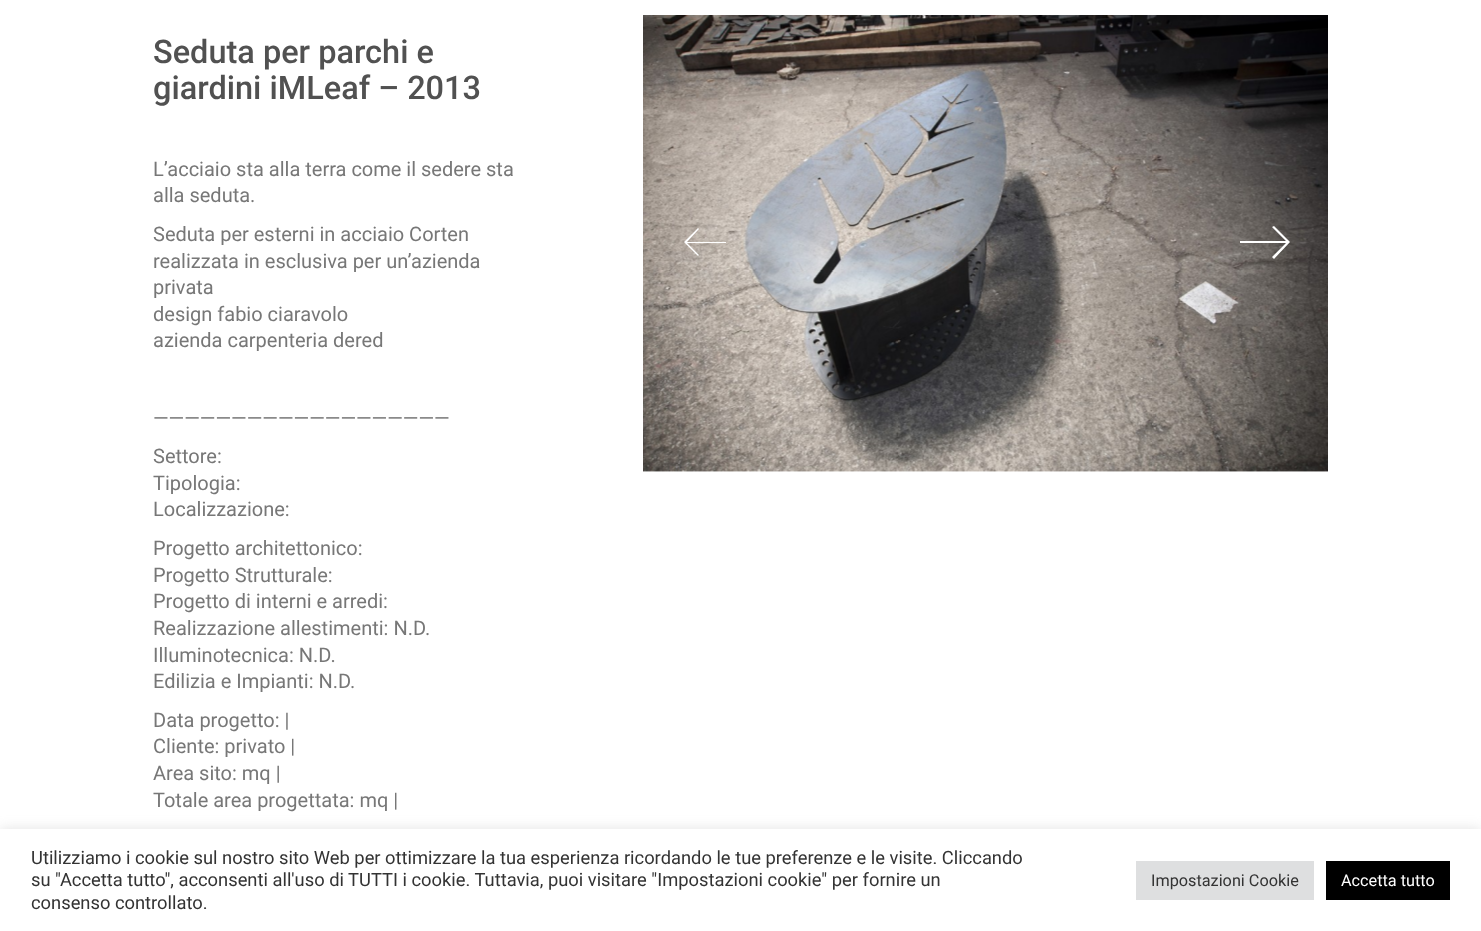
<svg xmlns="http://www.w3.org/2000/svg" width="1481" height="931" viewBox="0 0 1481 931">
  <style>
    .t1 { font: 500 32.5px Roboto; fill: #515151; }
    .t2 { font: 20px Roboto; fill: #777; }
    .t3 { font: 18.33px Roboto; fill: #333; }
    .t4 { font: 16.25px Roboto; fill: #333; }
    .t5 { font: 16.25px Roboto; fill: #fff; }
  </style>
  <rect width="100%" height="100%" fill="#fff"/>
  <text x="153" y="63" class="t1">Seduta per parchi e</text>
  <text x="153" y="99" class="t1">giardini iMLeaf – 2013</text>
  <text x="153" y="176" class="t2">L’acciaio sta alla terra come il sedere sta</text>
  <text x="153" y="202" class="t2">alla seduta.</text>
  <text x="153" y="241" class="t2">Seduta per esterni in acciaio Corten</text>
  <text x="153" y="268" class="t2">realizzata in esclusiva per un’azienda</text>
  <text x="153" y="294" class="t2">privata</text>
  <text x="153" y="321" class="t2">design fabio ciaravolo</text>
  <text x="153" y="347" class="t2">azienda carpenteria dered</text>
  <text x="153" y="425" class="t2">———————————————————</text>
  <text x="153" y="463" class="t2">Settore:</text>
  <text x="153" y="490" class="t2">Tipologia:</text>
  <text x="153" y="516" class="t2">Localizzazione:</text>
  <text x="153" y="555" class="t2">Progetto architettonico:</text>
  <text x="153" y="582" class="t2">Progetto Strutturale:</text>
  <text x="153" y="608" class="t2">Progetto di interni e arredi:</text>
  <text x="153" y="635" class="t2">Realizzazione allestimenti: N.D.</text>
  <text x="153" y="662" class="t2">Illuminotecnica: N.D.</text>
  <text x="153" y="688" class="t2">Edilizia e Impianti: N.D.</text>
  <text x="153" y="727" class="t2">Data progetto: |</text>
  <text x="153" y="753" class="t2">Cliente: privato |</text>
  <text x="153" y="780" class="t2">Area sito: mq |</text>
  <text x="153" y="807" class="t2">Totale area progettata: mq |</text>
  <image x="643" y="15" width="685" height="457" href="images/1.png"/>
  <path d="M726 242H687L699 229L698 228L684 242L698 256L699 255L687 243H726Z" fill="#fff"/>
  <path d="M1274 226L1272 227L1286 241H1240V243H1286L1272 257L1274 259L1290 242Z" fill="#fff"/>
  <rect x="0" y="828" width="1481" height="102" fill="#acabab4d" filter="blur(6px)"/>
  <rect x="0" y="829" width="1481" height="102" fill="#fff"/>
  <text x="31" y="864" class="t3">Utilizziamo i cookie sul nostro sito Web per ottimizzare la tua esperienza ricordando le tue preferenze e le visite. Cliccando</text>
  <text x="31" y="886" class="t3">su "Accetta tutto", acconsenti all'uso di TUTTI i cookie. Tuttavia, puoi visitare "Impostazioni cookie" per fornire un</text>
  <text x="31" y="909" class="t3">consenso controllato.</text>
  <rect x="1136" y="861" width="178" height="39" fill="#dedfe0"/>
  <text x="1151" y="886" class="t4">Impostazioni Cookie</text>
  <rect x="1326" y="861" width="124" height="39" fill="#000"/>
  <text x="1341" y="886" class="t5">Accetta tutto</text>
</svg>
